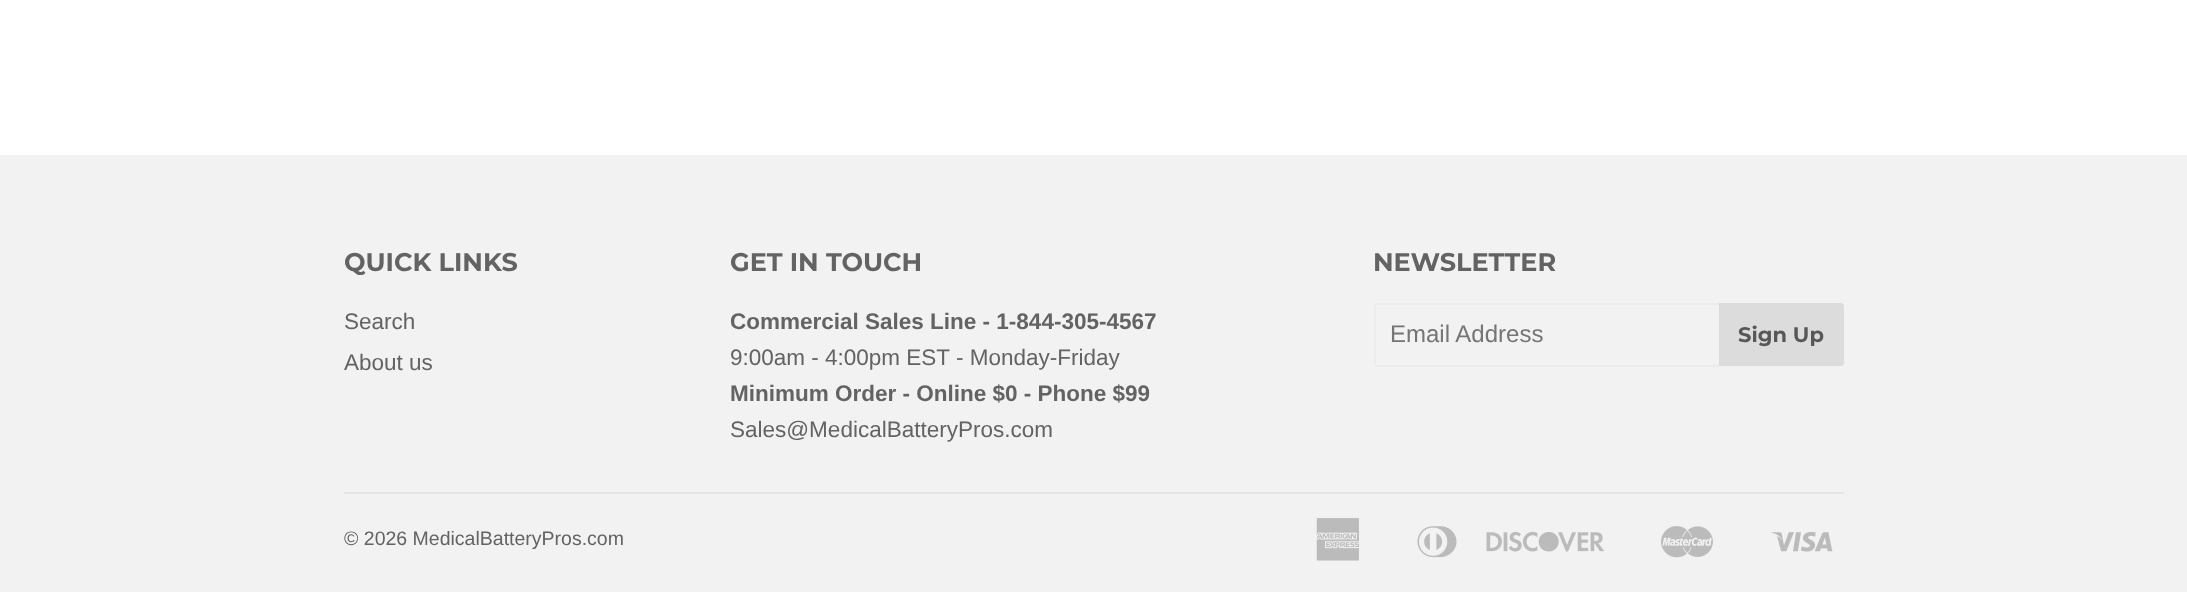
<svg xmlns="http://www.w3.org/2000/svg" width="2187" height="592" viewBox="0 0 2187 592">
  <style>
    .t1 { font: 100 25.5px Montserrat; fill: #636363; }
    .t2 { font: 22.5px Liberation Sans; fill: #636363; }
    .t3 { font: bold 22.5px Liberation Sans; fill: #636363; }
    .t4 { font: 24px Liberation Sans; fill: #757575; }
    .t5 { font: 100 21px Montserrat; fill: #585858; }
    .t6 { font: 19.5px Liberation Sans; fill: #636363; }
  </style>
  <rect width="100%" height="100%" fill="#fff"/>
  <rect x="0" y="155" width="2187" height="437" fill="#f2f2f2"/>
  <text x="344" y="271" class="t1">QUICK LINKS</text>
  <text x="344" y="329" class="t2">Search</text>
  <text x="344" y="370" class="t2">About us</text>
  <text x="730" y="271" class="t1">GET IN TOUCH</text>
  <text x="730" y="329" class="t3">Commercial Sales Line - 1-844-305-4567</text>
  <text x="730" y="365" class="t2">9:00am - 4:00pm EST - Monday-Friday</text>
  <text x="730" y="401" class="t3">Minimum Order - Online $0 - Phone $99</text>
  <text x="730" y="437" class="t2">Sales@MedicalBatteryPros.com</text>
  <text x="1373" y="271" class="t1">NEWSLETTER</text>
  <rect x="1376" y="303" width="343" height="2" fill="#ececec"/>
  <rect x="1376" y="365" width="343" height="2" fill="#ececec"/>
  <rect x="1374" y="305" width="2" height="60" fill="#ececec"/>
  <text x="1390" y="342" class="t4">Email Address</text>
  <path d="M1719 303H1841C1842.5 303 1844 304.5 1844 306V363C1844 364.5 1842.5 366 1841 366H1719Z" fill="#dcdcdc"/>
  <text x="1738" y="342" class="t5">Sign Up</text>
  <rect x="344" y="492" width="1500" height="2" fill="#e5e5e5"/>
  <text x="344" y="545" class="t6">© 2026 MedicalBatteryPros.com</text>
  <image x="1316" y="518" width="44" height="43" href="images/1.png"/>
  <image x="1417" y="526" width="40" height="32" href="images/2.png"/>
  <image x="1486" y="531" width="118" height="21" href="images/3.png"/>
  <image x="1661" y="526" width="52" height="32" href="images/4.png"/>
  <image x="1771" y="531" width="62" height="21" href="images/5.png"/>
</svg>
